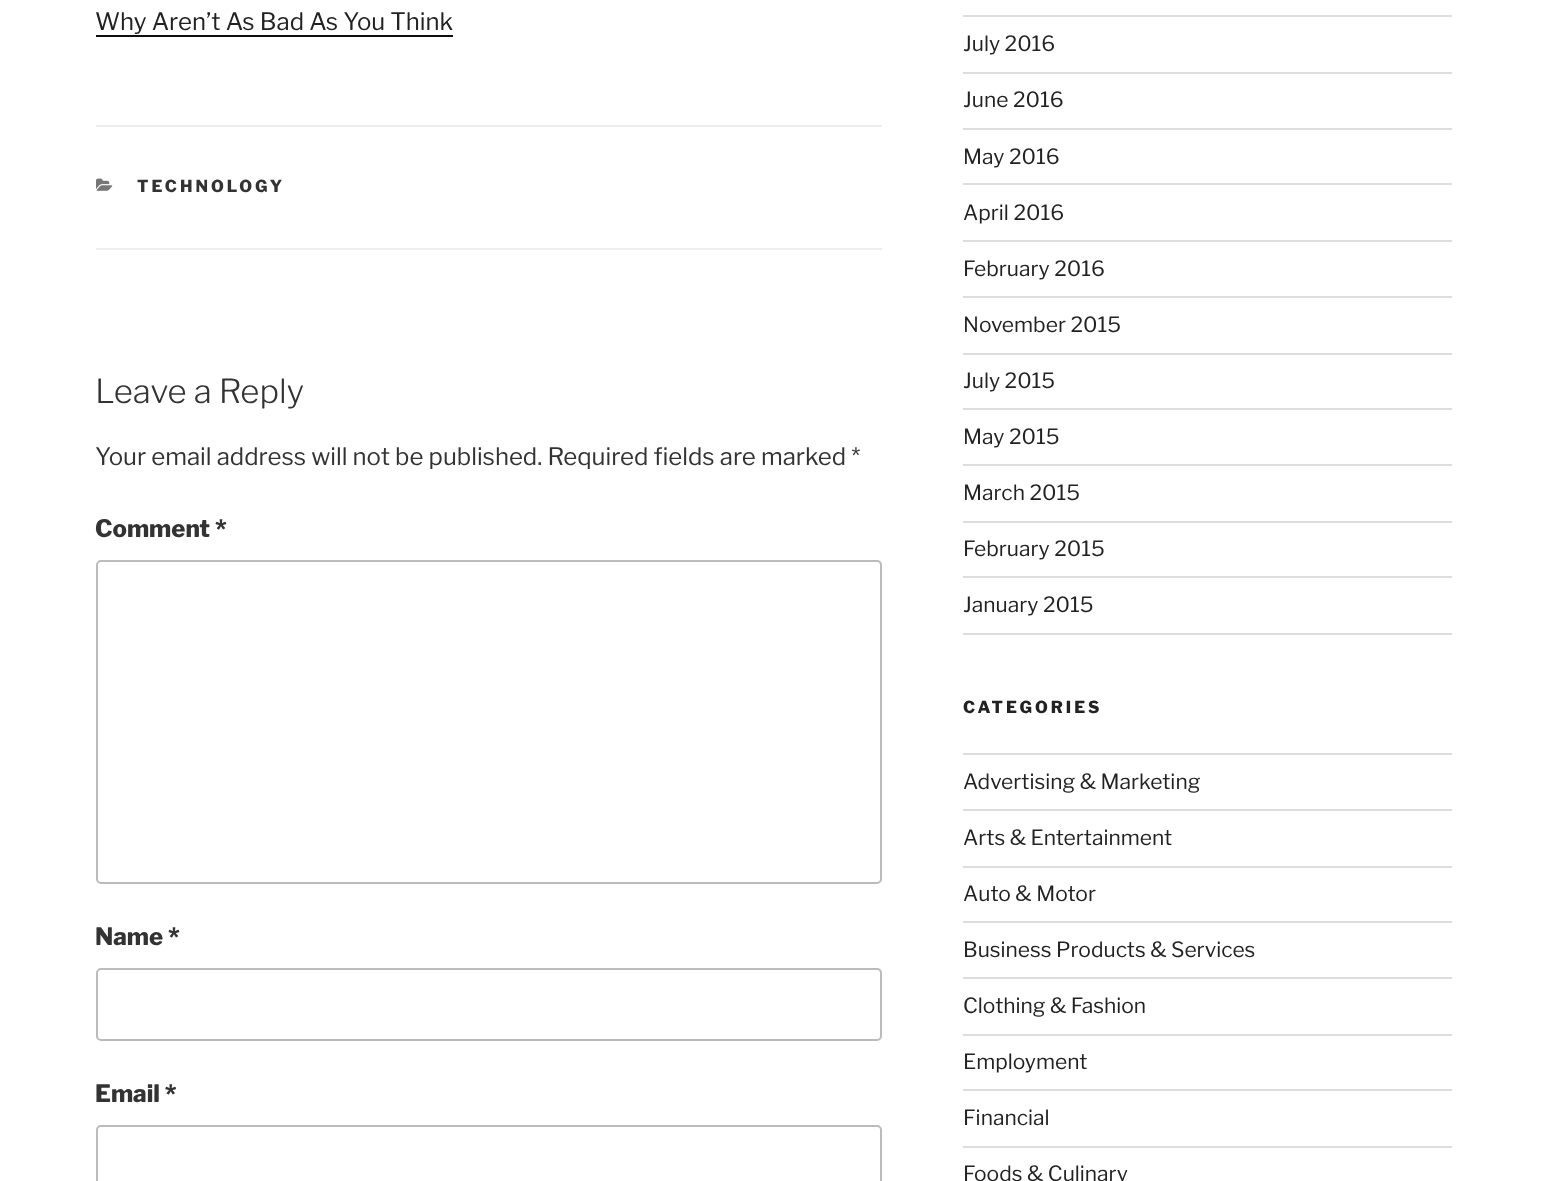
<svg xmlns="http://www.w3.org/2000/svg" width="1546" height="1181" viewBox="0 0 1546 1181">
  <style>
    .t1 { font: 24px Libre Franklin; fill: #222; }
    .t2 { font: 800 16.5px Libre Franklin; letter-spacing: 3px; fill: #333; }
    .t3 { font: 300 33px Libre Franklin; fill: #333; }
    .t4 { font: 24px Libre Franklin; fill: #333; }
    .t5 { font: 800 24px Libre Franklin; fill: #333; }
    .t6 { font: 21px Libre Franklin; fill: #222; }
    .t7 { font: 800 16.5px Libre Franklin; letter-spacing: 3px; fill: #222; }
  </style>
  <rect width="100%" height="100%" fill="#fff"/>
  <text x="95" y="30" class="t1">Why Aren’t As Bad As You Think</text>
  <rect x="96" y="35" width="357" height="2" fill="#0f0f0f"/>
  <rect x="96" y="125" width="786" height="2" fill="#eee"/>
  <rect x="96" y="248" width="786" height="2" fill="#eee"/>
  <image x="96" y="178" width="17" height="13" href="images/1.png"/>
  <text x="137" y="192" class="t2">TECHNOLOGY</text>
  <text x="95" y="403" class="t3">Leave a Reply</text>
  <text x="95" y="465" class="t4">Your email address will not be published. Required fields are marked *</text>
  <text x="95" y="537" class="t5">Comment *</text>
  <rect x="97" y="561" width="784" height="322" rx="4" fill="none" stroke="#bbb" stroke-width="2"/>
  <text x="95" y="945" class="t5">Name *</text>
  <rect x="97" y="969" width="784" height="71" rx="4" fill="none" stroke="#bbb" stroke-width="2"/>
  <text x="95" y="1102" class="t5">Email *</text>
  <rect x="97" y="1126" width="784" height="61" rx="4" fill="none" stroke="#bbb" stroke-width="2"/>
  <rect x="963" y="15" width="489" height="2" fill="#ddd"/>
  <rect x="963" y="72" width="489" height="2" fill="#ddd"/>
  <text x="963" y="51" class="t6">July 2016</text>
  <rect x="963" y="128" width="489" height="2" fill="#ddd"/>
  <text x="963" y="107" class="t6">June 2016</text>
  <rect x="963" y="183" width="489" height="2" fill="#ddd"/>
  <text x="963" y="164" class="t6">May 2016</text>
  <rect x="963" y="240" width="489" height="2" fill="#ddd"/>
  <text x="963" y="220" class="t6">April 2016</text>
  <rect x="963" y="296" width="489" height="2" fill="#ddd"/>
  <text x="963" y="276" class="t6">February 2016</text>
  <rect x="963" y="353" width="489" height="2" fill="#ddd"/>
  <text x="963" y="332" class="t6">November 2015</text>
  <rect x="963" y="408" width="489" height="2" fill="#ddd"/>
  <text x="963" y="388" class="t6">July 2015</text>
  <rect x="963" y="464" width="489" height="2" fill="#ddd"/>
  <text x="963" y="444" class="t6">May 2015</text>
  <rect x="963" y="521" width="489" height="2" fill="#ddd"/>
  <text x="963" y="500" class="t6">March 2015</text>
  <rect x="963" y="576" width="489" height="2" fill="#ddd"/>
  <text x="963" y="556" class="t6">February 2015</text>
  <rect x="963" y="633" width="489" height="2" fill="#ddd"/>
  <text x="963" y="612" class="t6">January 2015</text>
  <text x="963" y="713" class="t7">CATEGORIES</text>
  <rect x="963" y="753" width="489" height="2" fill="#ddd"/>
  <rect x="963" y="809" width="489" height="2" fill="#ddd"/>
  <text x="963" y="789" class="t6">Advertising &amp; Marketing</text>
  <rect x="963" y="866" width="489" height="2" fill="#ddd"/>
  <text x="963" y="845" class="t6">Arts &amp; Entertainment</text>
  <rect x="963" y="921" width="489" height="2" fill="#ddd"/>
  <text x="963" y="901" class="t6">Auto &amp; Motor</text>
  <rect x="963" y="977" width="489" height="2" fill="#ddd"/>
  <text x="963" y="957" class="t6">Business Products &amp; Services</text>
  <rect x="963" y="1034" width="489" height="2" fill="#ddd"/>
  <text x="963" y="1013" class="t6">Clothing &amp; Fashion</text>
  <rect x="963" y="1089" width="489" height="2" fill="#ddd"/>
  <text x="963" y="1069" class="t6">Employment</text>
  <rect x="963" y="1146" width="489" height="2" fill="#ddd"/>
  <text x="963" y="1125" class="t6">Financial</text>
  <text x="963" y="1181" class="t6">Foods &amp; Culinary</text>
</svg>
